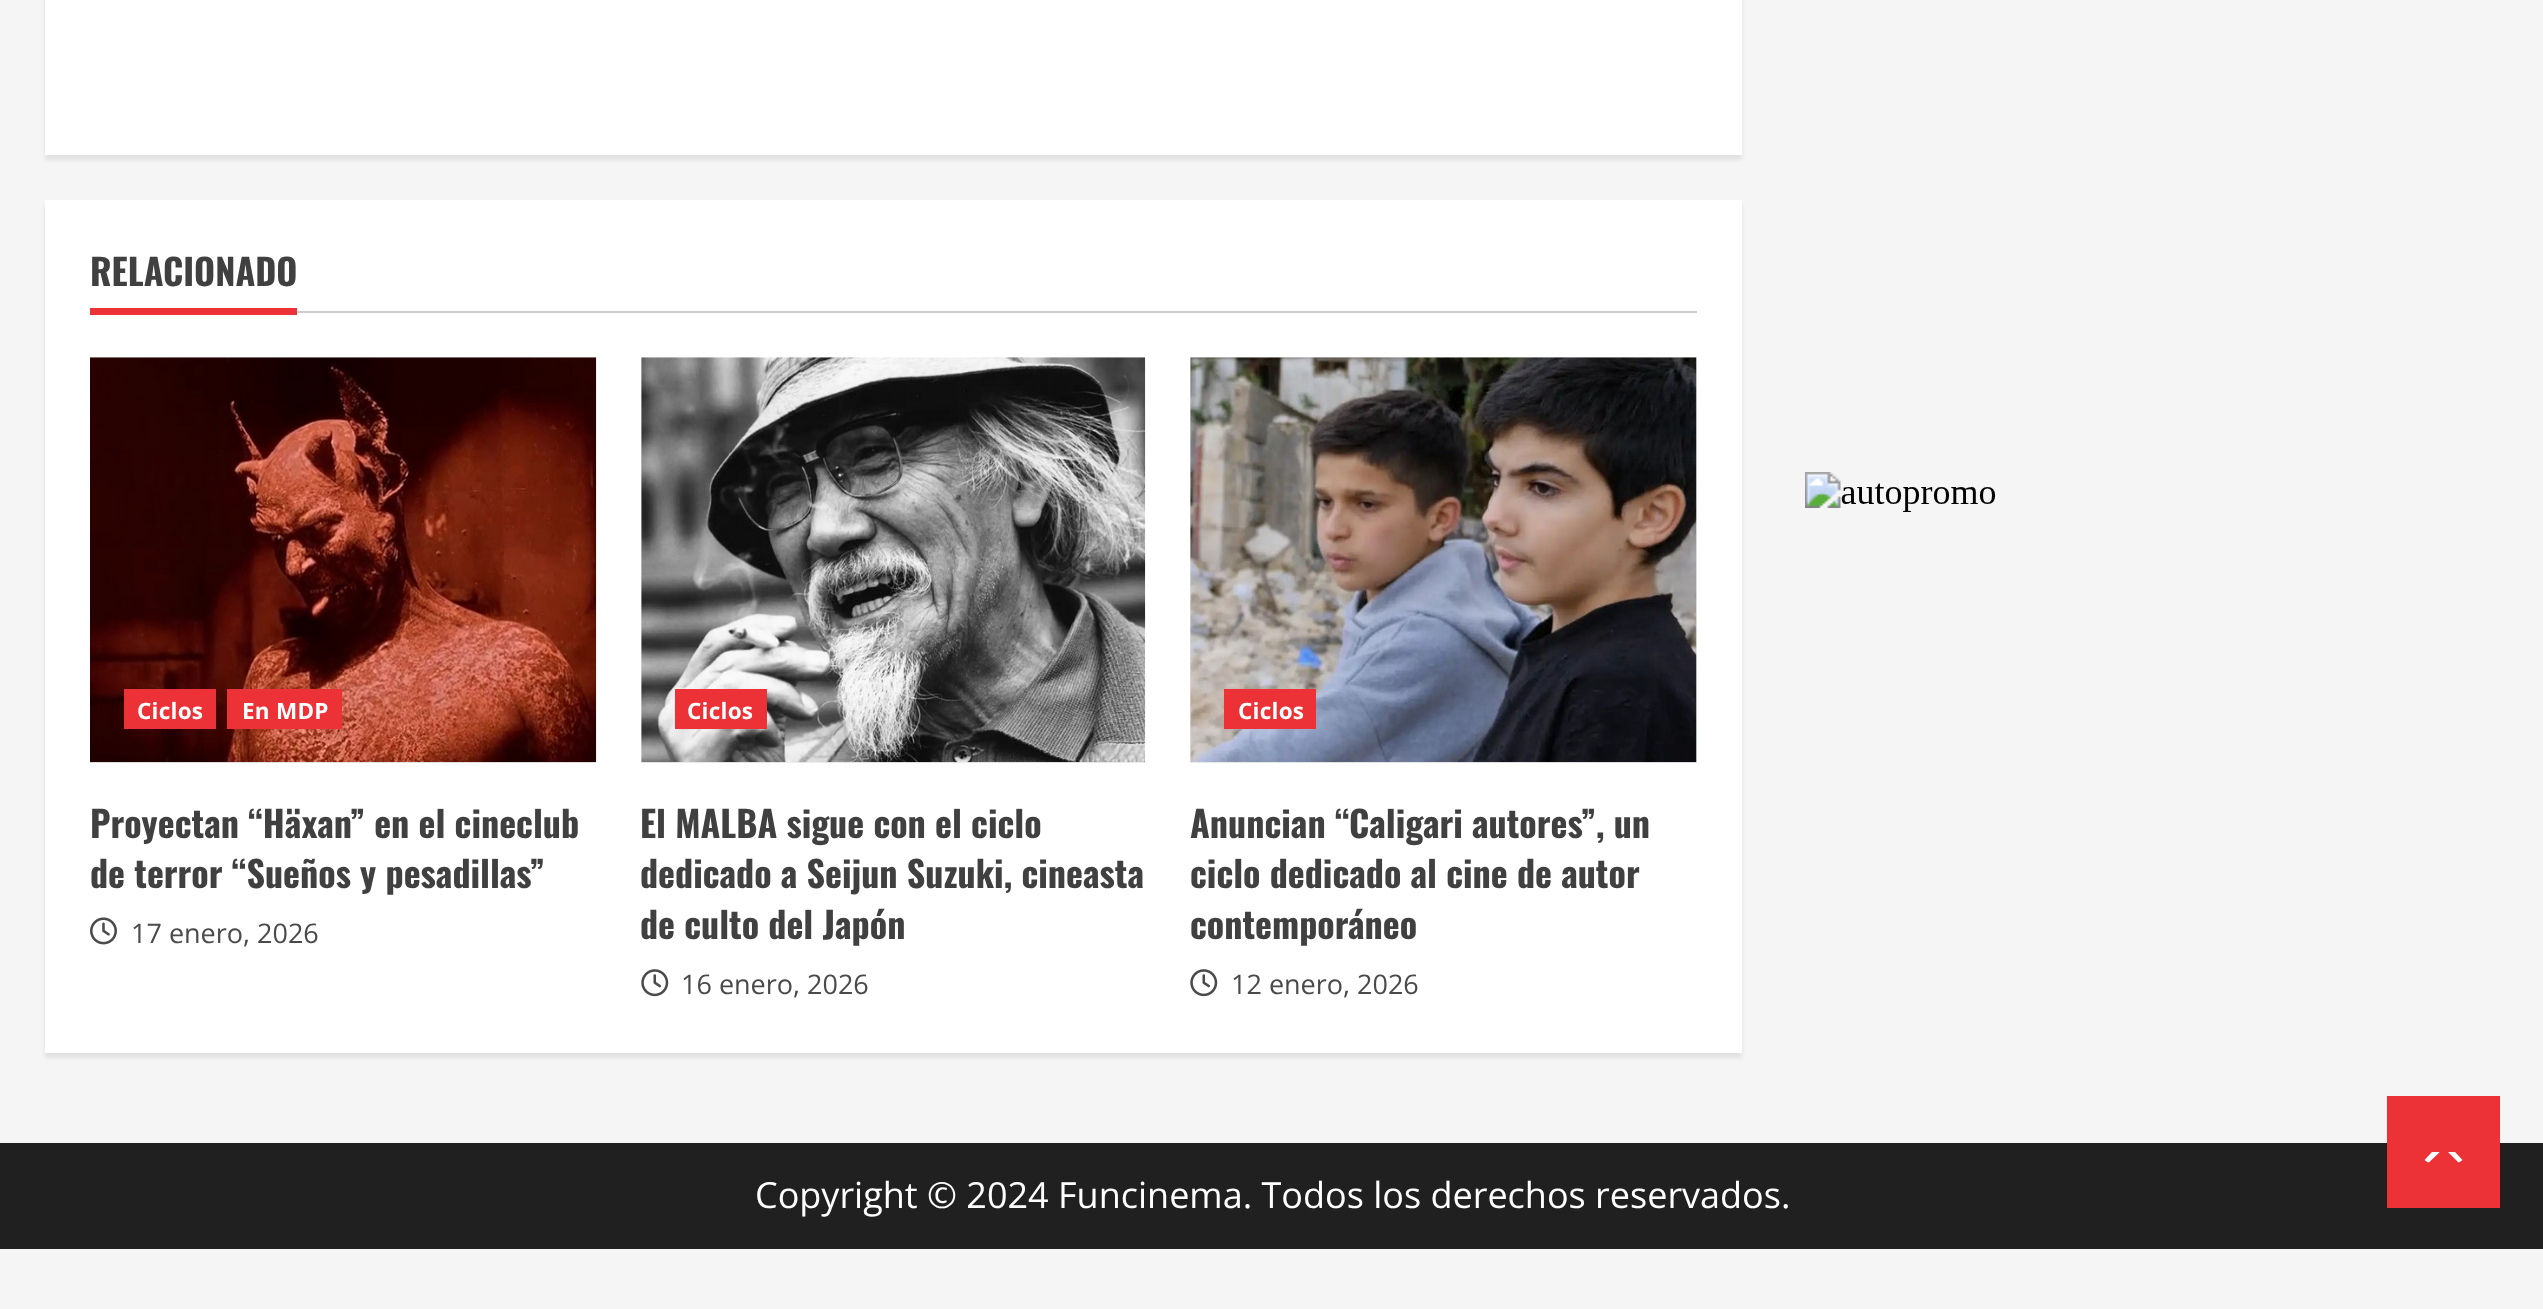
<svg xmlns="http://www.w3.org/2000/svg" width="2543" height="1309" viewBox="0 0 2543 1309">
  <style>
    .t1 { font: bold 36px Oswald; fill: #404040; }
    .t2 { font: bold 22.5px Open Sans; letter-spacing: 0.25px; fill: #fff; }
    .t3 { font: 27px Open Sans; fill: #4a4a4a; }
    .t4 { font: 36px Open Sans; fill: #fff; }
  </style>
  <rect width="100%" height="100%" fill="#f5f5f5"/>
  <rect x="45" y="-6" width="1697" height="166" fill="#00000014" filter="blur(2px)"/>
  <rect x="45" y="0" width="1697" height="155" fill="#fff"/>
  <rect x="45" y="205" width="1697" height="853" fill="#00000014" filter="blur(2px)"/>
  <rect x="45" y="200" width="1697" height="853" fill="#fff"/>
  <rect x="297" y="311" width="1400" height="2" fill="#ccc"/>
  <text x="90" y="286" class="t1">RELACIONADO</text>
  <rect x="90" y="308" width="207" height="7" fill="#ed3237"/>
  <rect x="90" y="762" width="506" height="1" fill="#ececec"/>
  <image x="90" y="357" width="507" height="406" href="images/1.png"/>
  <rect x="124" y="689" width="92" height="40" fill="#ed3237"/>
  <text x="137" y="719" class="t2">Ciclos</text>
  <rect x="227" y="689" width="115" height="40" fill="#ed3237"/>
  <text x="242" y="719" class="t2">En MDP</text>
  <text x="90" y="838" class="t1">Proyectan “Häxan” en el cineclub</text>
  <text x="90" y="888" class="t1">de terror “Sueños y pesadillas”</text>
  <image x="90" y="917" width="27" height="28" href="images/2.png"/>
  <text x="131" y="943" class="t3">17 enero, 2026</text>
  <rect x="641" y="358" width="504" height="405" fill="#ececec"/>
  <image x="641" y="357" width="505" height="406" href="images/3.png"/>
  <rect x="675" y="689" width="92" height="40" fill="#ed3237"/>
  <text x="687" y="719" class="t2">Ciclos</text>
  <text x="640" y="838" class="t1">El MALBA sigue con el ciclo</text>
  <text x="640" y="888" class="t1">dedicado a Seijun Suzuki, cineasta</text>
  <text x="640" y="939" class="t1">de culto del Japón</text>
  <image x="641" y="969" width="28" height="28" href="images/4.png"/>
  <text x="681" y="994" class="t3">16 enero, 2026</text>
  <rect x="1190" y="358" width="507" height="405" fill="#ececec"/>
  <image x="1190" y="357" width="507" height="406" href="images/5.png"/>
  <rect x="1224" y="689" width="92" height="40" fill="#ed3237"/>
  <text x="1238" y="719" class="t2">Ciclos</text>
  <text x="1190" y="838" class="t1">Anuncian “Caligari autores”, un</text>
  <text x="1190" y="888" class="t1">ciclo dedicado al cine de autor</text>
  <text x="1190" y="939" class="t1">contemporáneo</text>
  <image x="1190" y="969" width="28" height="28" href="images/4.png"/>
  <text x="1231" y="994" class="t3">12 enero, 2026</text>
  <image x="1805" y="472" width="191" height="40" href="images/6.png"/>
  <rect x="0" y="1143" width="2543" height="106" fill="#202020"/>
  <text x="755" y="1208" class="t4">Copyright © 2024 Funcinema. Todos los derechos reservados.</text>
  <rect x="2387" y="1096" width="113" height="112" fill="#ed3237"/>
  <path d="M2462.5 1160C2460.5 1162 2458 1163 2455 1163H2432C2429 1163 2426.5 1162 2424.5 1160L2432 1152H2455Z" fill="#fff"/>
  <path d="M2466 1170H2421L2444 1148Z" fill="#ed3237"/>
</svg>
